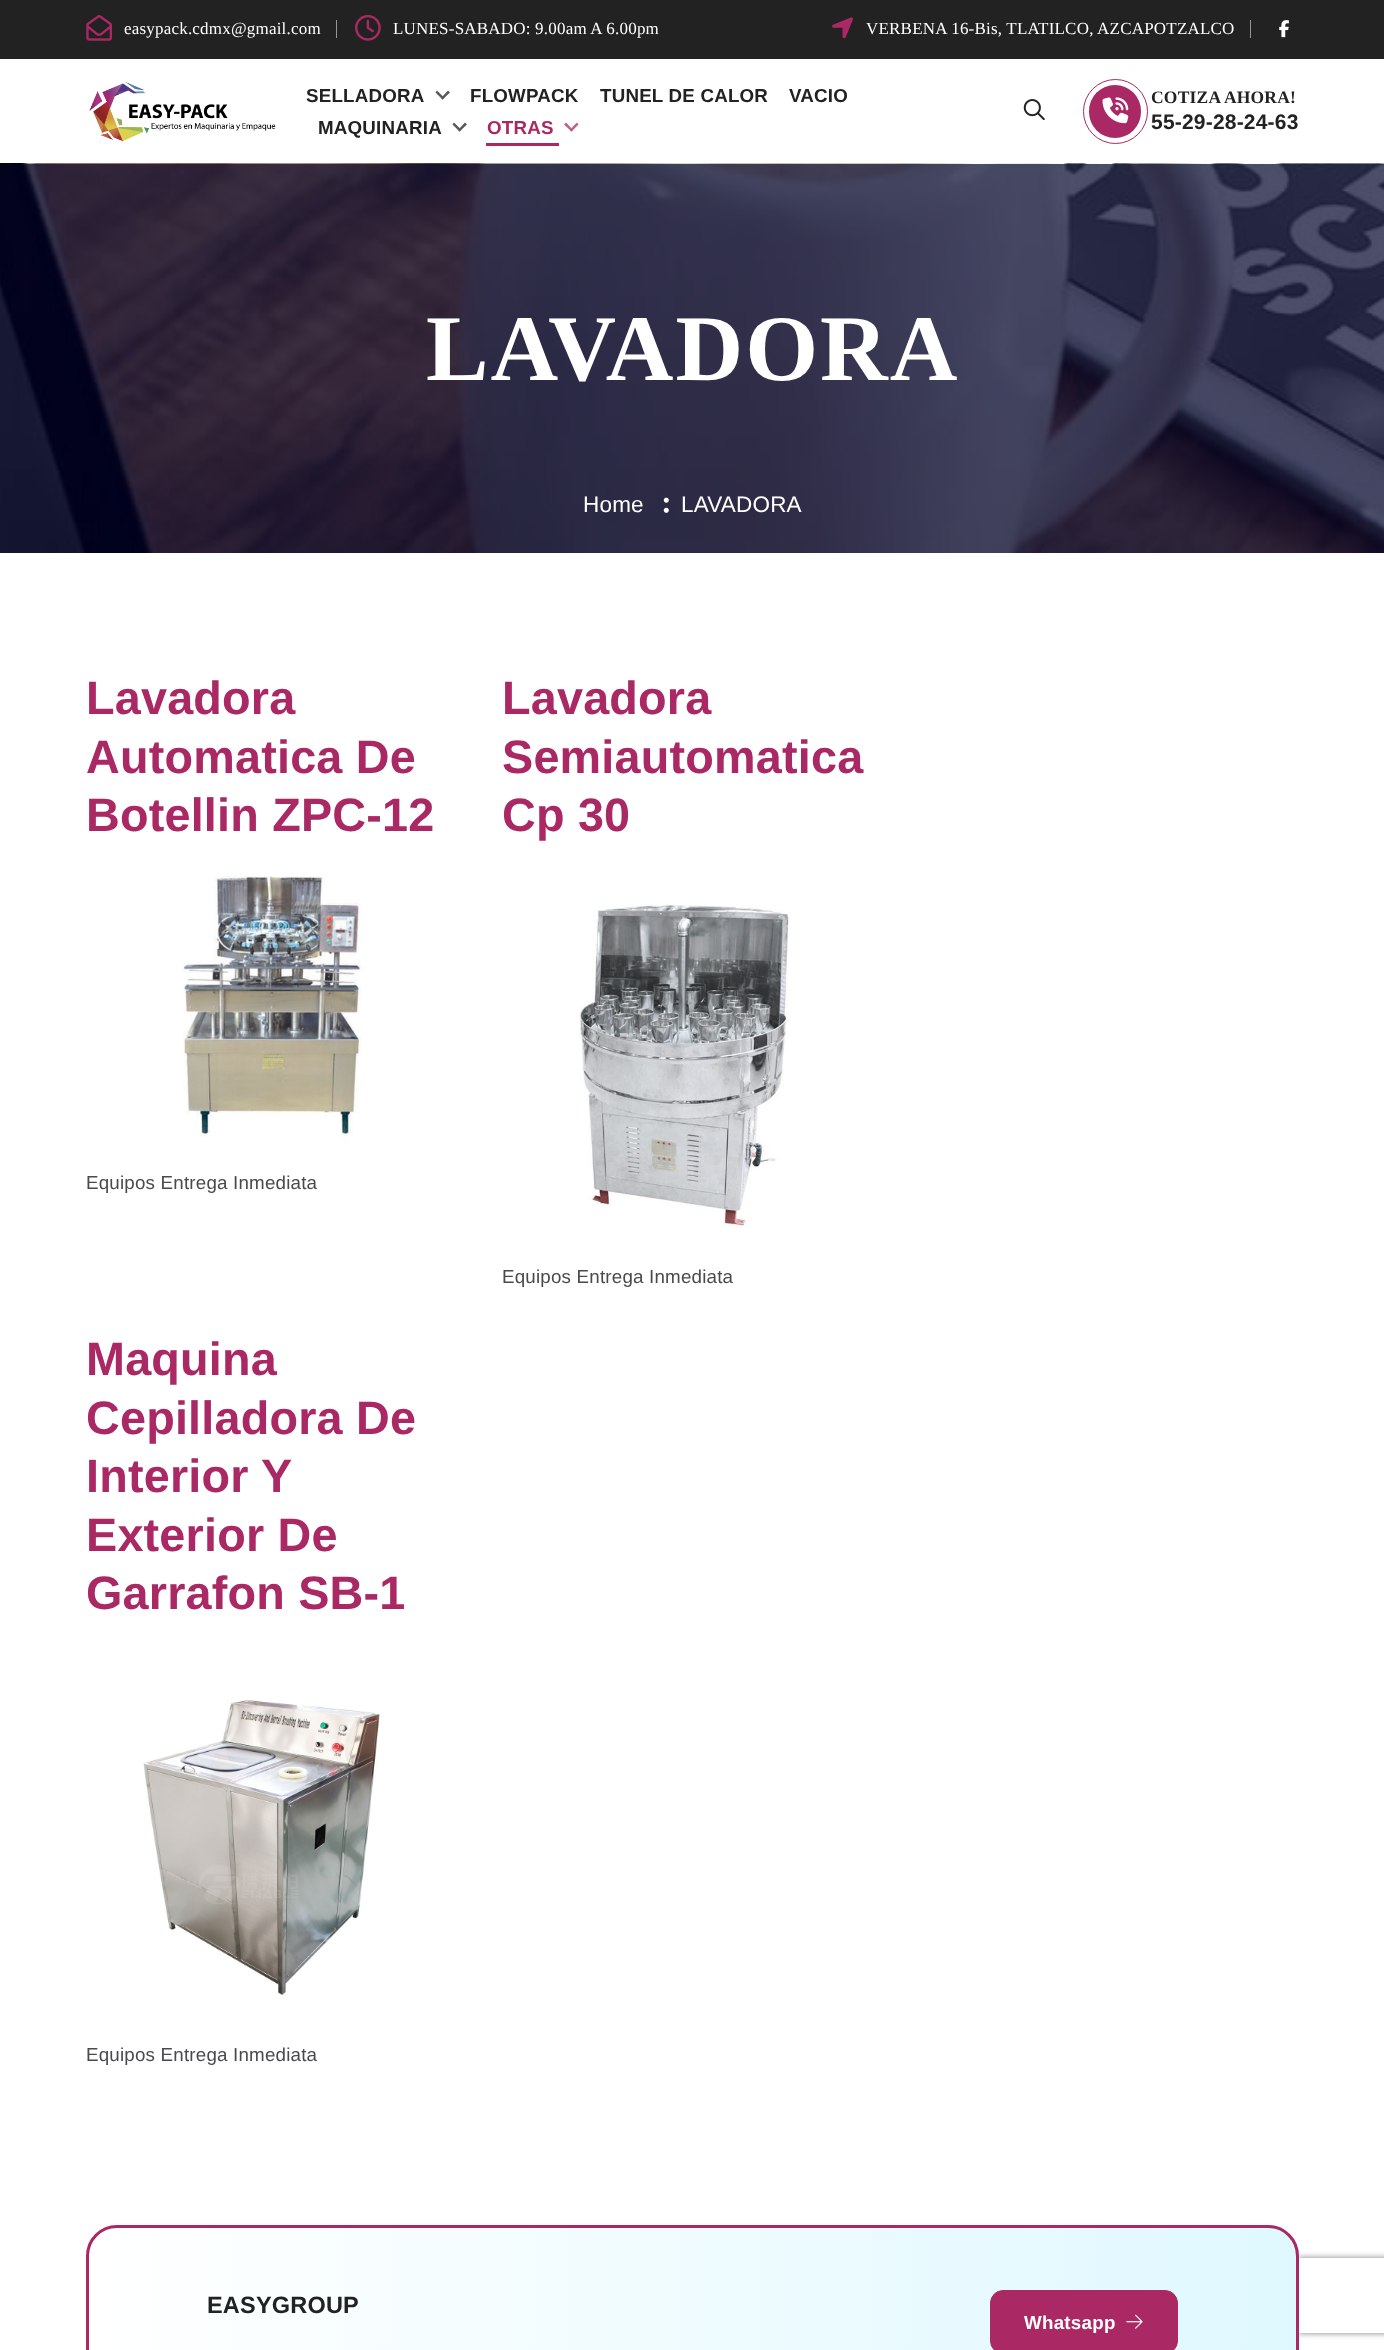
<svg xmlns="http://www.w3.org/2000/svg" width="1384" height="2350" viewBox="0 0 1384 2350">
  <style>
    .t1 { font: 17px Liberation Serif; letter-spacing: 0.2px; fill: #fff; }
    .t2 { font: bold 18.75px Liberation Sans; letter-spacing: 0.2px; fill: #222; }
    .t3 { font: bold 18.75px Liberation Sans; letter-spacing: 0.2px; fill: #aa2863; }
    .t4 { font: bold 17.5px Liberation Serif; letter-spacing: 0.2px; fill: #222; }
    .t5 { font: bold 21px Liberation Sans; letter-spacing: 0.2px; fill: #222; }
    .t6 { font: bold 93.75px Liberation Serif; letter-spacing: 2px; fill: #fff; }
    .t7 { font: 22.5px Liberation Sans; letter-spacing: 0.2px; fill: #fff; }
    .t8 { font: bold 46.75px Liberation Sans; letter-spacing: 0.2px; fill: #aa2863; }
    .t9 { font: 18.75px Liberation Sans; letter-spacing: 0.2px; fill: #494a4d; }
    .t10 { font: bold 23.5px Liberation Sans; letter-spacing: 0.2px; fill: #222; }
    .t11 { font: bold 18.75px Liberation Sans; letter-spacing: 0.25px; fill: #fff; }
  </style>
  <defs>
    <clipPath id="clip1"><path d="M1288 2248H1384V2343H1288ZM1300.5 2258H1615.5C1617 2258 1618 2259 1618 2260.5V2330.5C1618 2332 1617 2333 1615.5 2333H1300.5C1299 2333 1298 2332 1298 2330.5V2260.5C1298 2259 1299 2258 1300.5 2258Z" clip-rule="evenodd"/></clipPath>
    <clipPath id="clip2"><rect x="86" y="2225" width="1213" height="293" rx="31"/></clipPath>
    <linearGradient id="g1" gradientUnits="userSpaceOnUse" x1="89" y1="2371" x2="1296" y2="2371"><stop offset="0" stop-color="#fff"/><stop offset="1" stop-color="#dff8ff"/></linearGradient>
  </defs>
  <rect width="100%" height="100%" fill="#fff"/>
  <rect x="0" y="0" width="1384" height="59" fill="#222"/>
  <image x="86" y="15" width="27" height="26" href="images/1.png"/>
  <text x="124" y="34" class="t1">easypack.cdmx@gmail.com</text>
  <rect x="336" y="20" width="1" height="18" fill="#969696"/>
  <image x="355" y="14" width="26" height="27" href="images/2.png"/>
  <text x="393" y="34" class="t1">LUNES-SABADO: 9.00am A 6.00pm</text>
  <image x="832" y="17" width="21" height="22" href="images/3.png"/>
  <text x="866" y="34" class="t1">VERBENA 16-Bis, TLATILCO, AZCAPOTZALCO</text>
  <rect x="1250" y="20" width="1" height="18" fill="#969696"/>
  <image x="1279" y="20" width="10" height="18" href="images/4.png"/>
  <image x="89" y="81" width="187" height="61" href="images/5.png"/>
  <text x="306" y="102" class="t2">SELLADORA</text>
  <path d="M448 90.5L450 92.5L442.5 99.5L441 98Z" fill="#595959"/>
  <path d="M437 90.5L444.5 98L442.5 99.5L435.5 92.5Z" fill="#595959"/>
  <text x="470" y="102" class="t2">FLOWPACK</text>
  <text x="600" y="102" class="t2">TUNEL DE CALOR</text>
  <text x="789" y="102" class="t2">VACIO</text>
  <text x="318" y="134" class="t2">MAQUINARIA</text>
  <path d="M465 122.5L467 124.5L459.5 131.5L458 130Z" fill="#595959"/>
  <path d="M454 122.5L461.5 130L459.5 131.5L452.5 124.5Z" fill="#595959"/>
  <text x="487" y="134" class="t3">OTRAS</text>
  <path d="M577 122.5L578.5 124.5L571.5 131.5L569.5 130Z" fill="#bf5e8a"/>
  <path d="M566 122.5L573 130L571.5 131.5L564 124.5Z" fill="#bf5e8a"/>
  <rect x="486" y="143" width="73" height="3" fill="#aa2863"/>
  <image x="1023" y="99" width="22" height="22" href="images/6.png"/>
  <rect x="1089" y="85" width="52" height="53" rx="26" fill="#aa2863"/>
  <image x="1102" y="97" width="27" height="27" href="images/7.png"/>
  <circle cx="1115.5" cy="111.5" r="32" fill="none" stroke="#aa2863"/>
  <text x="1151" y="103" class="t4">COTIZA AHORA!</text>
  <text x="1151" y="129" class="t5">55-29-28-24-63</text>
  <image x="0" y="163" width="1384" height="390" href="images/8.png"/>
  <text x="426" y="380" class="t6">LAVADORA</text>
  <text x="583" y="512" class="t7">Home</text>
  <image x="663" y="497" width="6" height="16" href="images/9.png"/>
  <text x="681" y="512" class="t7">LAVADORA</text>
  <text x="86" y="714" class="t8">Lavadora</text>
  <text x="86" y="773" class="t8">Automatica De</text>
  <text x="86" y="831" class="t8">Botellin ZPC-12</text>
  <image x="183" y="876" width="182" height="266" href="images/10.png"/>
  <text x="86" y="1189" class="t9">Equipos Entrega Inmediata</text>
  <text x="502" y="714" class="t8">Lavadora</text>
  <text x="502" y="773" class="t8">Semiautomatica</text>
  <text x="502" y="831" class="t8">Cp 30</text>
  <image x="579" y="903" width="210" height="325" href="images/11.png"/>
  <text x="502" y="1283" class="t9">Equipos Entrega Inmediata</text>
  <text x="86" y="1375" class="t8">Maquina</text>
  <text x="86" y="1434" class="t8">Cepilladora De</text>
  <text x="86" y="1492" class="t8">Interior Y</text>
  <text x="86" y="1551" class="t8">Exterior De</text>
  <text x="86" y="1609" class="t8">Garrafon SB-1</text>
  <image x="143" y="1699" width="237" height="296" href="images/12.png"/>
  <text x="86" y="2061" class="t9">Equipos Entrega Inmediata</text>
  <g clip-path="url(#clip1)">
    <rect x="1298" y="2258" width="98" height="75" rx="2.5" fill="#808080" filter="blur(3px)"/>
  </g>
  <g clip-path="url(#clip2)">
    <rect x="89" y="2225" width="1207" height="125" fill="url(#g1)"/>
  </g>
  <rect x="87.5" y="2226.5" width="1210" height="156" rx="29.5" fill="none" stroke="#aa2863" stroke-width="3"/>
  <text x="207" y="2313" class="t10">EASYGROUP</text>
  <rect x="990.5" y="2290.5" width="187" height="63" rx="12.5" fill="#aa2863" stroke="#aa2863"/>
  <text x="1024" y="2329" class="t11">Whatsapp</text>
  <image x="1126" y="2314" width="17" height="15" href="images/13.png"/>
</svg>
